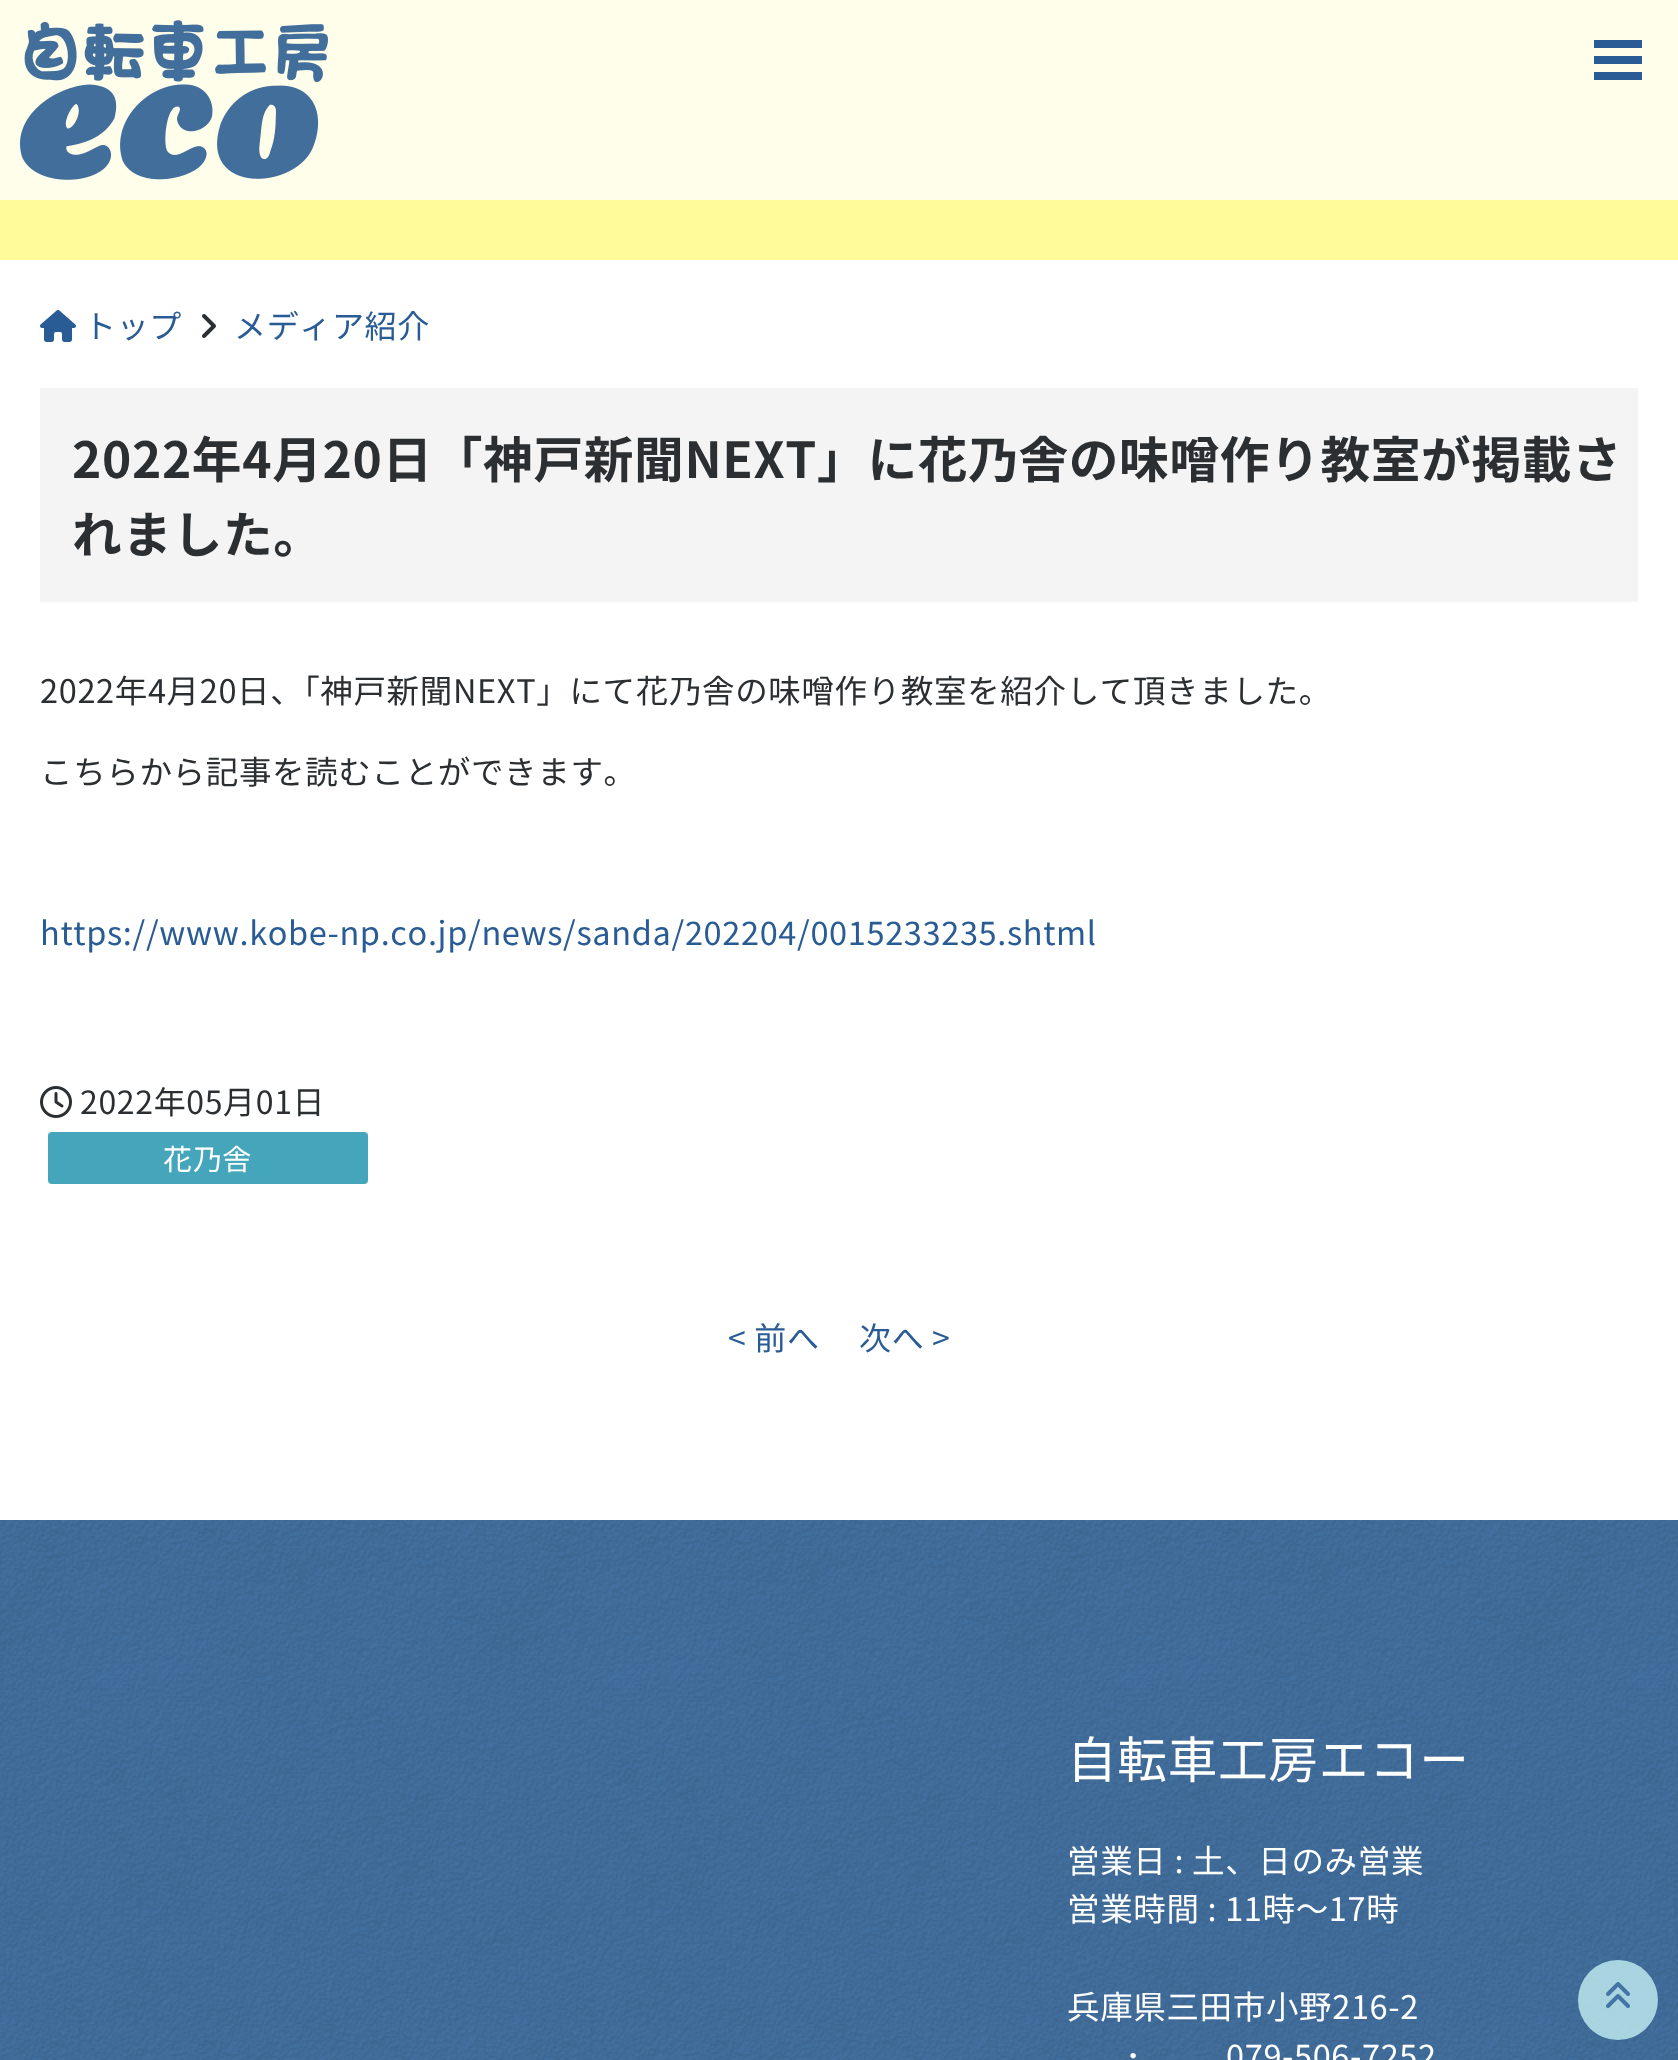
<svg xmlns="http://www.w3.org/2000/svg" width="1678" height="2060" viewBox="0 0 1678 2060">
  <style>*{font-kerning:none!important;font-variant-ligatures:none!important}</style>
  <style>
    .t1 { font: 32px Noto Sans JP; letter-spacing: 0.65px; fill: #295b94; }
    .t2 { font: bold 49.7px Noto Sans JP; letter-spacing: 0.65px; fill: #2c2f32; }
    .t3 { font: 32.5px Noto Sans JP; letter-spacing: 0.65px; fill: #2c2f32; }
    .t4 { font: 32.5px Noto Sans JP; letter-spacing: 0.65px; fill: #295b94; }
    .t5 { font: 32px Noto Sans JP; letter-spacing: 0.65px; fill: #2c2f32; }
    .t6 { font: 29px Noto Sans JP; letter-spacing: 0.65px; fill: #fff; }
    .t7 { font: 49.7px Noto Sans JP; letter-spacing: 0.65px; fill: #fff; }
    .t8 { font: 32.5px Noto Sans JP; letter-spacing: 0.65px; fill: #fff; }
  </style>
  <rect width="100%" height="100%" fill="#fff"/>
  <rect x="0" y="0" width="1678" height="200" fill="#fffeeb"/>
  <image x="20" y="20" width="308" height="160" href="images/1.png"/>
  <rect x="1594" y="40" width="48" height="8" fill="#295b94"/>
  <rect x="1594" y="56" width="48" height="8" fill="#295b94"/>
  <rect x="1594" y="72" width="48" height="8" fill="#295b94"/>
  <rect x="0" y="200" width="1678" height="60" fill="#fffb9a"/>
  <image x="40" y="310" width="36" height="32" href="images/2.png"/>
  <text x="84" y="338" class="t1">トップ</text>
  <image x="202" y="314" width="14" height="24" href="images/3.png"/>
  <text x="234" y="338" class="t1">メディア紹介</text>
  <rect x="40" y="388" width="1598" height="214" fill="#f4f4f4"/>
  <text x="72" y="478" class="t2">2022年4月20日「神戸新聞NEXT」に花乃舎の味噌作り教室が掲載さ</text>
  <text x="72" y="553" class="t2">れました。</text>
  <text x="40" y="703" class="t3">2022年4月20日、「神戸新聞NEXT」にて花乃舎の味噌作り教室を紹介して頂きました。</text>
  <text x="40" y="784" class="t3">こちらから記事を読むことができます。</text>
  <text x="40" y="945" class="t4">https://www.kobe-np.co.jp/news/sanda/202204/0015233235.shtml</text>
  <image x="40" y="1086" width="32" height="32" href="images/4.png"/>
  <text x="80" y="1114" class="t5">2022年05月01日</text>
  <rect x="48" y="1132" width="320" height="52" rx="4" fill="#45a5ba"/>
  <text x="163" y="1170" class="t6">花乃舎</text>
  <text x="728" y="1350" class="t1">&lt; 前へ</text>
  <text x="859" y="1350" class="t1">次へ &gt;</text>
  <rect x="0" y="1520" width="1678" height="540" fill="#4472a2"/>
  <image x="0" y="1520" width="1678" height="540" href="images/5.png"/>
  <text x="1067" y="1778" class="t7">自転車工房エコー</text>
  <text x="1067" y="1873" class="t8">営業日 : 土、日のみ営業</text>
  <text x="1067" y="1921" class="t8">営業時間 : 11時～17時</text>
  <text x="1067" y="2019" class="t8">兵庫県三田市小野216-2</text>
  <text x="1125" y="2068" class="t8">･</text>
  <text x="1226" y="2068" class="t8">079-506-7252</text>
  <circle cx="1618" cy="2000" r="40" fill="#c3eff3cc"/>
  <image x="1606" y="1982" width="24" height="26" href="images/6.png"/>
</svg>
